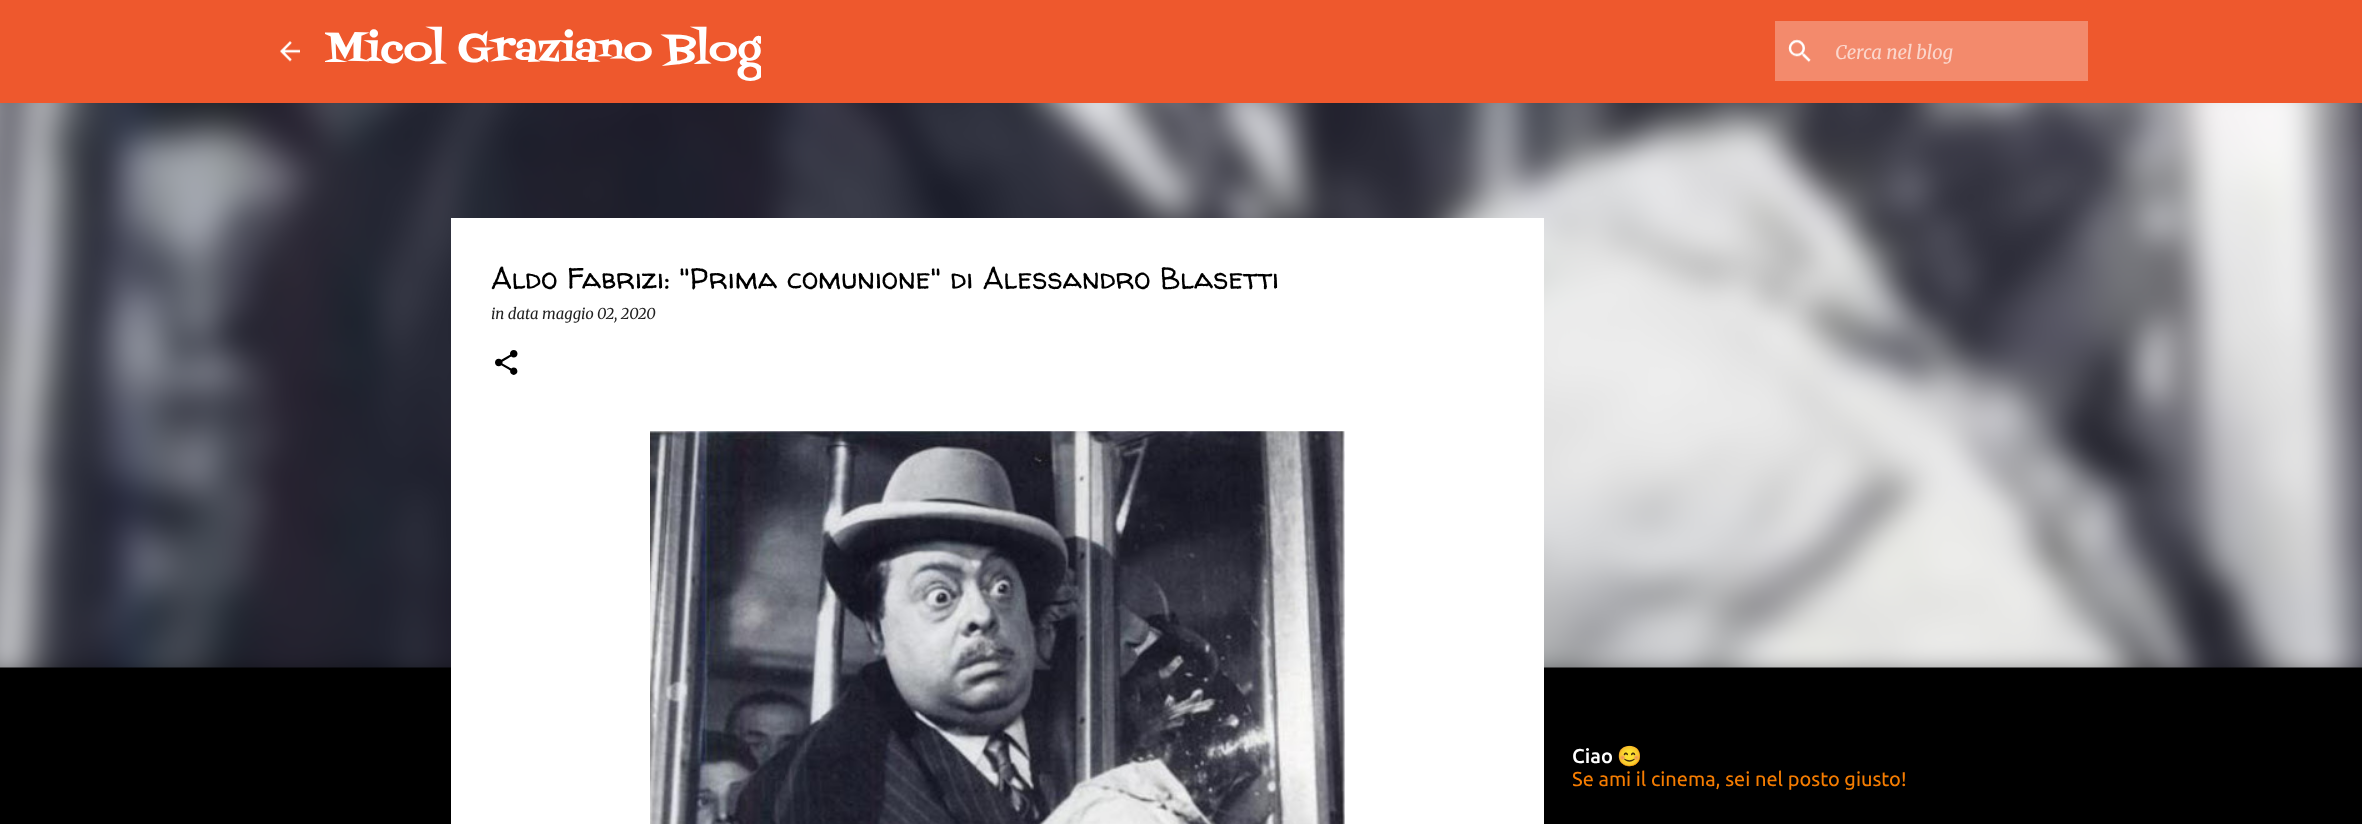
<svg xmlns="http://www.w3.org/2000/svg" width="2362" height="824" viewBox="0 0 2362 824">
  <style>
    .t1 { font: 40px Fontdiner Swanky; fill: #fff; }
    .t2 { font: italic 18.75px Merriweather; fill: #fbd7cd; }
    .t3 { font: 30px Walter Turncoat; fill: #000; }
    .t4 { font: italic 15px Merriweather; fill: #1f1f1f; }
    .t5 { font: 500 20px Ubuntu; fill: #fff; }
    .t6 { font: 20px Noto Color Emoji; fill: #fff; }
    .t7 { font: 20px Ubuntu; fill: #f57c00; }
  </style>
  <defs>
    <clipPath id="clip1"><rect x="325" y="20" width="436" height="63"/></clipPath>
    <clipPath id="clip2"><rect x="1573" y="725" width="350" height="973"/></clipPath>
  </defs>
  <rect width="100%" height="100%" fill="#000"/>
  <rect x="0" y="0" width="2362" height="103" fill="#ee582d"/>
  <image x="280" y="41" width="20" height="21" href="images/1.png"/>
  <g clip-path="url(#clip1)">
    <text x="325" y="61" class="t1">Micol Graziano Blog</text>
  </g>
  <rect x="1775" y="21" width="313" height="60" fill="#f38a6c"/>
  <image x="1788" y="39" width="23" height="24" href="images/2.png"/>
  <text x="1835" y="59" class="t2">Cerca nel blog</text>
  <image x="0" y="103" width="2362" height="565" href="images/5.png"/>
  <rect x="451" y="218" width="1093" height="606" fill="#fff"/>
  <text x="491" y="289" class="t3">Aldo Fabrizi: "Prima comunione" di Alessandro Blasetti</text>
  <text x="491" y="319" class="t4">in data maggio 02, 2020</text>
  <image x="495" y="350" width="23" height="25" href="images/3.png"/>
  <image x="650" y="431" width="695" height="393" href="images/4.png"/>
  <text x="1572" y="763" class="t5">Ciao</text>
  <text x="1617" y="763" class="t6">😊</text>
  <g clip-path="url(#clip2)">
    <text x="1572" y="786" class="t7">Se ami il cinema, sei nel posto giusto!</text>
  </g>
</svg>
